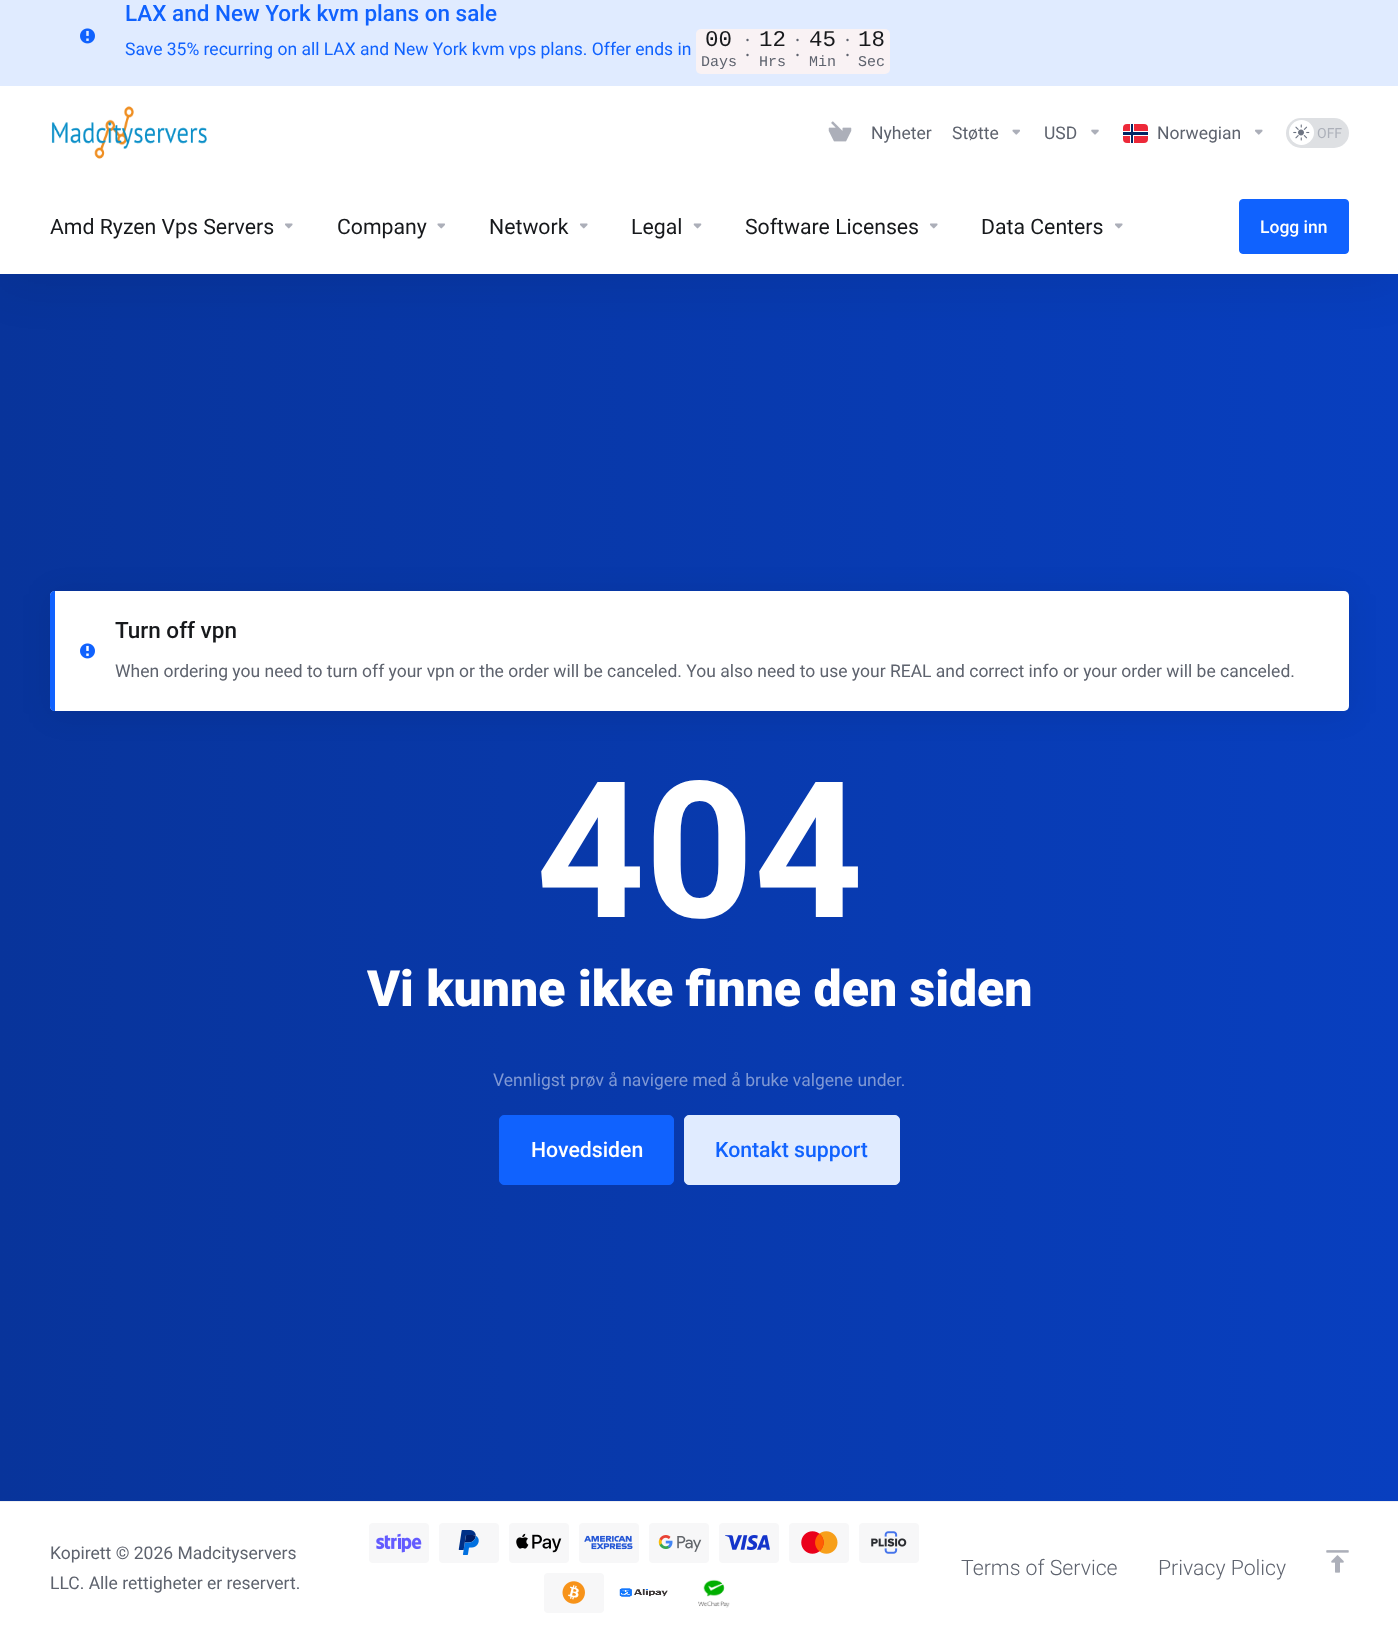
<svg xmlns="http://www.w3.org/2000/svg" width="1398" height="1632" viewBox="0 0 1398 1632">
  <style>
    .t1 { font: 500 22.5px Roboto; fill: #1062fe; }
    .t2 { font: 17.5px Roboto; fill: #1062fe; }
    .t3 { font: 22.5px Liberation Mono; fill: #17191c; }
    .t4 { font: 15px Liberation Mono; fill: #5e636e; }
    .t5 { font: 17.5px Roboto; fill: #5e636e; }
    .t6 { font: 14px Roboto; fill: #acb0b9; }
    .t7 { font: 21.25px Roboto; fill: #17191c; }
    .t8 { font: 500 17.5px Roboto; fill: #fff; }
    .t9 { font: 500 22.5px Roboto; fill: #17191c; }
    .t10 { font: bold 190px Roboto; fill: #fff; }
    .t11 { font: 900 50px Roboto; fill: #fff; }
    .t12 { font: 17.5px Roboto; fill: #7f98d4; }
    .t13 { font: 500 21.25px Roboto; fill: #fff; }
    .t14 { font: 500 21.25px Roboto; fill: #1062fe; }
    .t15 { font: 300 21.25px Roboto; fill: #5e636e; }
  </style>
  <defs>
    <linearGradient id="g1" gradientUnits="userSpaceOnUse" x1="0" y1="888" x2="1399" y2="888"><stop offset="0" stop-color="#08349b"/><stop offset="1" stop-color="#083fbf"/></linearGradient>
  </defs>
  <rect width="100%" height="100%" fill="#fff"/>
  <rect x="0" y="274" width="1398" height="1227" fill="url(#g1)"/>
  <rect x="0" y="96" width="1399" height="188" fill="#00000014" filter="blur(25px)"/>
  <rect x="0" y="0" width="1398" height="86" fill="#e0ebff"/>
  <image x="80" y="28" width="15" height="16" href="images/1.png"/>
  <text x="125" y="21" class="t1">LAX and New York kvm plans on sale</text>
  <text x="125" y="55" class="t2">Save 35% recurring on all LAX and New York kvm vps plans. Offer ends in</text>
  <rect x="696" y="29" width="194" height="45" rx="5" fill="#f9f2f4"/>
  <text x="705" y="46" class="t3">00</text>
  <text x="701" y="66" class="t4">Days</text>
  <circle cx="747.5" cy="40" r="1.2" fill="#5e636e"/>
  <circle cx="747.5" cy="55" r="1.2" fill="#5e636e"/>
  <text x="759" y="46" class="t3">12</text>
  <text x="759" y="66" class="t4">Hrs</text>
  <circle cx="797.5" cy="40" r="1.2" fill="#5e636e"/>
  <circle cx="797.5" cy="55" r="1.2" fill="#5e636e"/>
  <text x="809" y="46" class="t3">45</text>
  <text x="809" y="66" class="t4">Min</text>
  <circle cx="847.5" cy="40" r="1.2" fill="#5e636e"/>
  <circle cx="847.5" cy="55" r="1.2" fill="#5e636e"/>
  <text x="858" y="46" class="t3">18</text>
  <text x="858" y="66" class="t4">Sec</text>
  <rect x="0" y="86" width="1398" height="188" fill="#fff"/>
  <image x="51" y="106" width="156" height="53" href="images/2.png"/>
  <image x="828" y="121" width="24" height="21" href="images/3.png"/>
  <text x="871" y="139" class="t5">Nyheter</text>
  <text x="952" y="139" class="t5">Støtte</text>
  <image x="1012" y="129" width="8" height="6" href="images/4.png"/>
  <text x="1044" y="139" class="t5">USD</text>
  <image x="1091" y="129" width="8" height="6" href="images/5.png"/>
  <rect x="1123" y="124" width="25" height="19" rx="4" fill="#ed2939"/>
  <rect x="1130" y="124" width="4" height="19" fill="#fff"/>
  <rect x="1123" y="131" width="25" height="5" fill="#fff"/>
  <rect x="1131" y="124" width="2" height="19" fill="#002664"/>
  <rect x="1123" y="132" width="25" height="3" fill="#002664"/>
  <text x="1157" y="139" class="t5">Norwegian</text>
  <image x="1255" y="129" width="8" height="6" href="images/6.png"/>
  <rect x="1286" y="118" width="63" height="30" rx="15" fill="#dee0e3"/>
  <circle cx="1301.5" cy="132.5" r="12.5" fill="#fff"/>
  <image x="1293" y="124" width="17" height="17" href="images/7.png"/>
  <text x="1317" y="138" class="t6">OFF</text>
  <text x="50" y="234" class="t7">Amd Ryzen Vps Servers</text>
  <image x="285" y="223" width="8" height="6" href="images/8.png"/>
  <text x="337" y="234" class="t7">Company</text>
  <image x="437" y="223" width="8" height="6" href="images/9.png"/>
  <text x="489" y="234" class="t7">Network</text>
  <image x="580" y="223" width="8" height="6" href="images/8.png"/>
  <text x="631" y="234" class="t7">Legal</text>
  <image x="693" y="223" width="9" height="6" href="images/10.png"/>
  <text x="745" y="234" class="t7">Software Licenses</text>
  <image x="930" y="223" width="8" height="6" href="images/8.png"/>
  <text x="981" y="234" class="t7">Data Centers</text>
  <image x="1115" y="223" width="8" height="6" href="images/8.png"/>
  <rect x="1239.5" y="199.5" width="109" height="54" rx="3.5" fill="#1062fe" stroke="#1062fe"/>
  <text x="1260" y="233" class="t8">Logg inn</text>
  <rect x="50" y="594" width="1299" height="120" rx="5" fill="#00000014" filter="blur(15px)"/>
  <rect x="50" y="591" width="1299" height="120" rx="5" fill="#fff"/>
  <path d="M55 591V711C52 711 50 709 50 706V596C50 593 52 591 55 591Z" fill="#1062fe"/>
  <image x="80" y="643" width="15" height="16" href="images/11.png"/>
  <text x="115" y="638" class="t9">Turn off vpn</text>
  <text x="115" y="677" class="t5">When ordering you need to turn off your vpn or the order will be canceled. You also need to use your REAL and correct info or your order will be canceled.</text>
  <text x="536" y="917" class="t10">404</text>
  <text x="367" y="1006" class="t11">Vi kunne ikke finne den siden</text>
  <text x="493" y="1086" class="t12">Vennligst prøv å navigere med å bruke valgene under.</text>
  <rect x="499.5" y="1115.5" width="174" height="69" rx="4.5" fill="#1062fe" stroke="#1062fe"/>
  <text x="531" y="1157" class="t13">Hovedsiden</text>
  <rect x="684.5" y="1115.5" width="215" height="69" rx="4.5" fill="#e0ebff" stroke="#e0ebff"/>
  <text x="715" y="1157" class="t14">Kontakt support</text>
  <rect x="0" y="1501" width="1398" height="1" fill="#efeff1"/>
  <text x="50" y="1559" class="t5">Kopirett © 2026 Madcityservers</text>
  <text x="50" y="1589" class="t5">LLC. Alle rettigheter er reservert.</text>
  <rect x="369" y="1523" width="60" height="40" rx="4" fill="#f7f7f8"/>
  <image x="376" y="1533" width="46" height="20" href="images/12.png"/>
  <rect x="439" y="1523" width="60" height="40" rx="4" fill="#f7f7f8"/>
  <image x="458" y="1530" width="21" height="25" href="images/13.png"/>
  <rect x="509" y="1523" width="60" height="40" rx="4" fill="#f7f7f8"/>
  <image x="516" y="1533" width="46" height="20" href="images/14.png"/>
  <rect x="579" y="1523" width="60" height="40" rx="4" fill="#f7f7f8"/>
  <image x="584" y="1535" width="49" height="15" href="images/15.png"/>
  <rect x="649" y="1523" width="60" height="40" rx="4" fill="#f7f7f8"/>
  <image x="658" y="1535" width="44" height="17" href="images/16.png"/>
  <rect x="719" y="1523" width="60" height="40" rx="4" fill="#f7f7f8"/>
  <image x="725" y="1535" width="45" height="15" href="images/17.png"/>
  <rect x="789" y="1523" width="60" height="40" rx="4" fill="#f7f7f8"/>
  <image x="801" y="1531" width="37" height="23" href="images/18.png"/>
  <rect x="859" y="1523" width="60" height="40" rx="4" fill="#f7f7f8"/>
  <image x="871" y="1531" width="36" height="23" href="images/19.png"/>
  <rect x="544" y="1573" width="60" height="40" rx="4" fill="#f7f7f8"/>
  <image x="562" y="1581" width="23" height="23" href="images/20.png"/>
  <image x="619" y="1588" width="49" height="9" href="images/21.png"/>
  <image x="698" y="1579" width="32" height="29" href="images/22.png"/>
  <text x="961" y="1575" class="t15">Terms of Service</text>
  <text x="1158" y="1575" class="t15">Privacy Policy</text>
  <image x="1326" y="1550" width="23" height="23" href="images/23.png"/>
</svg>
